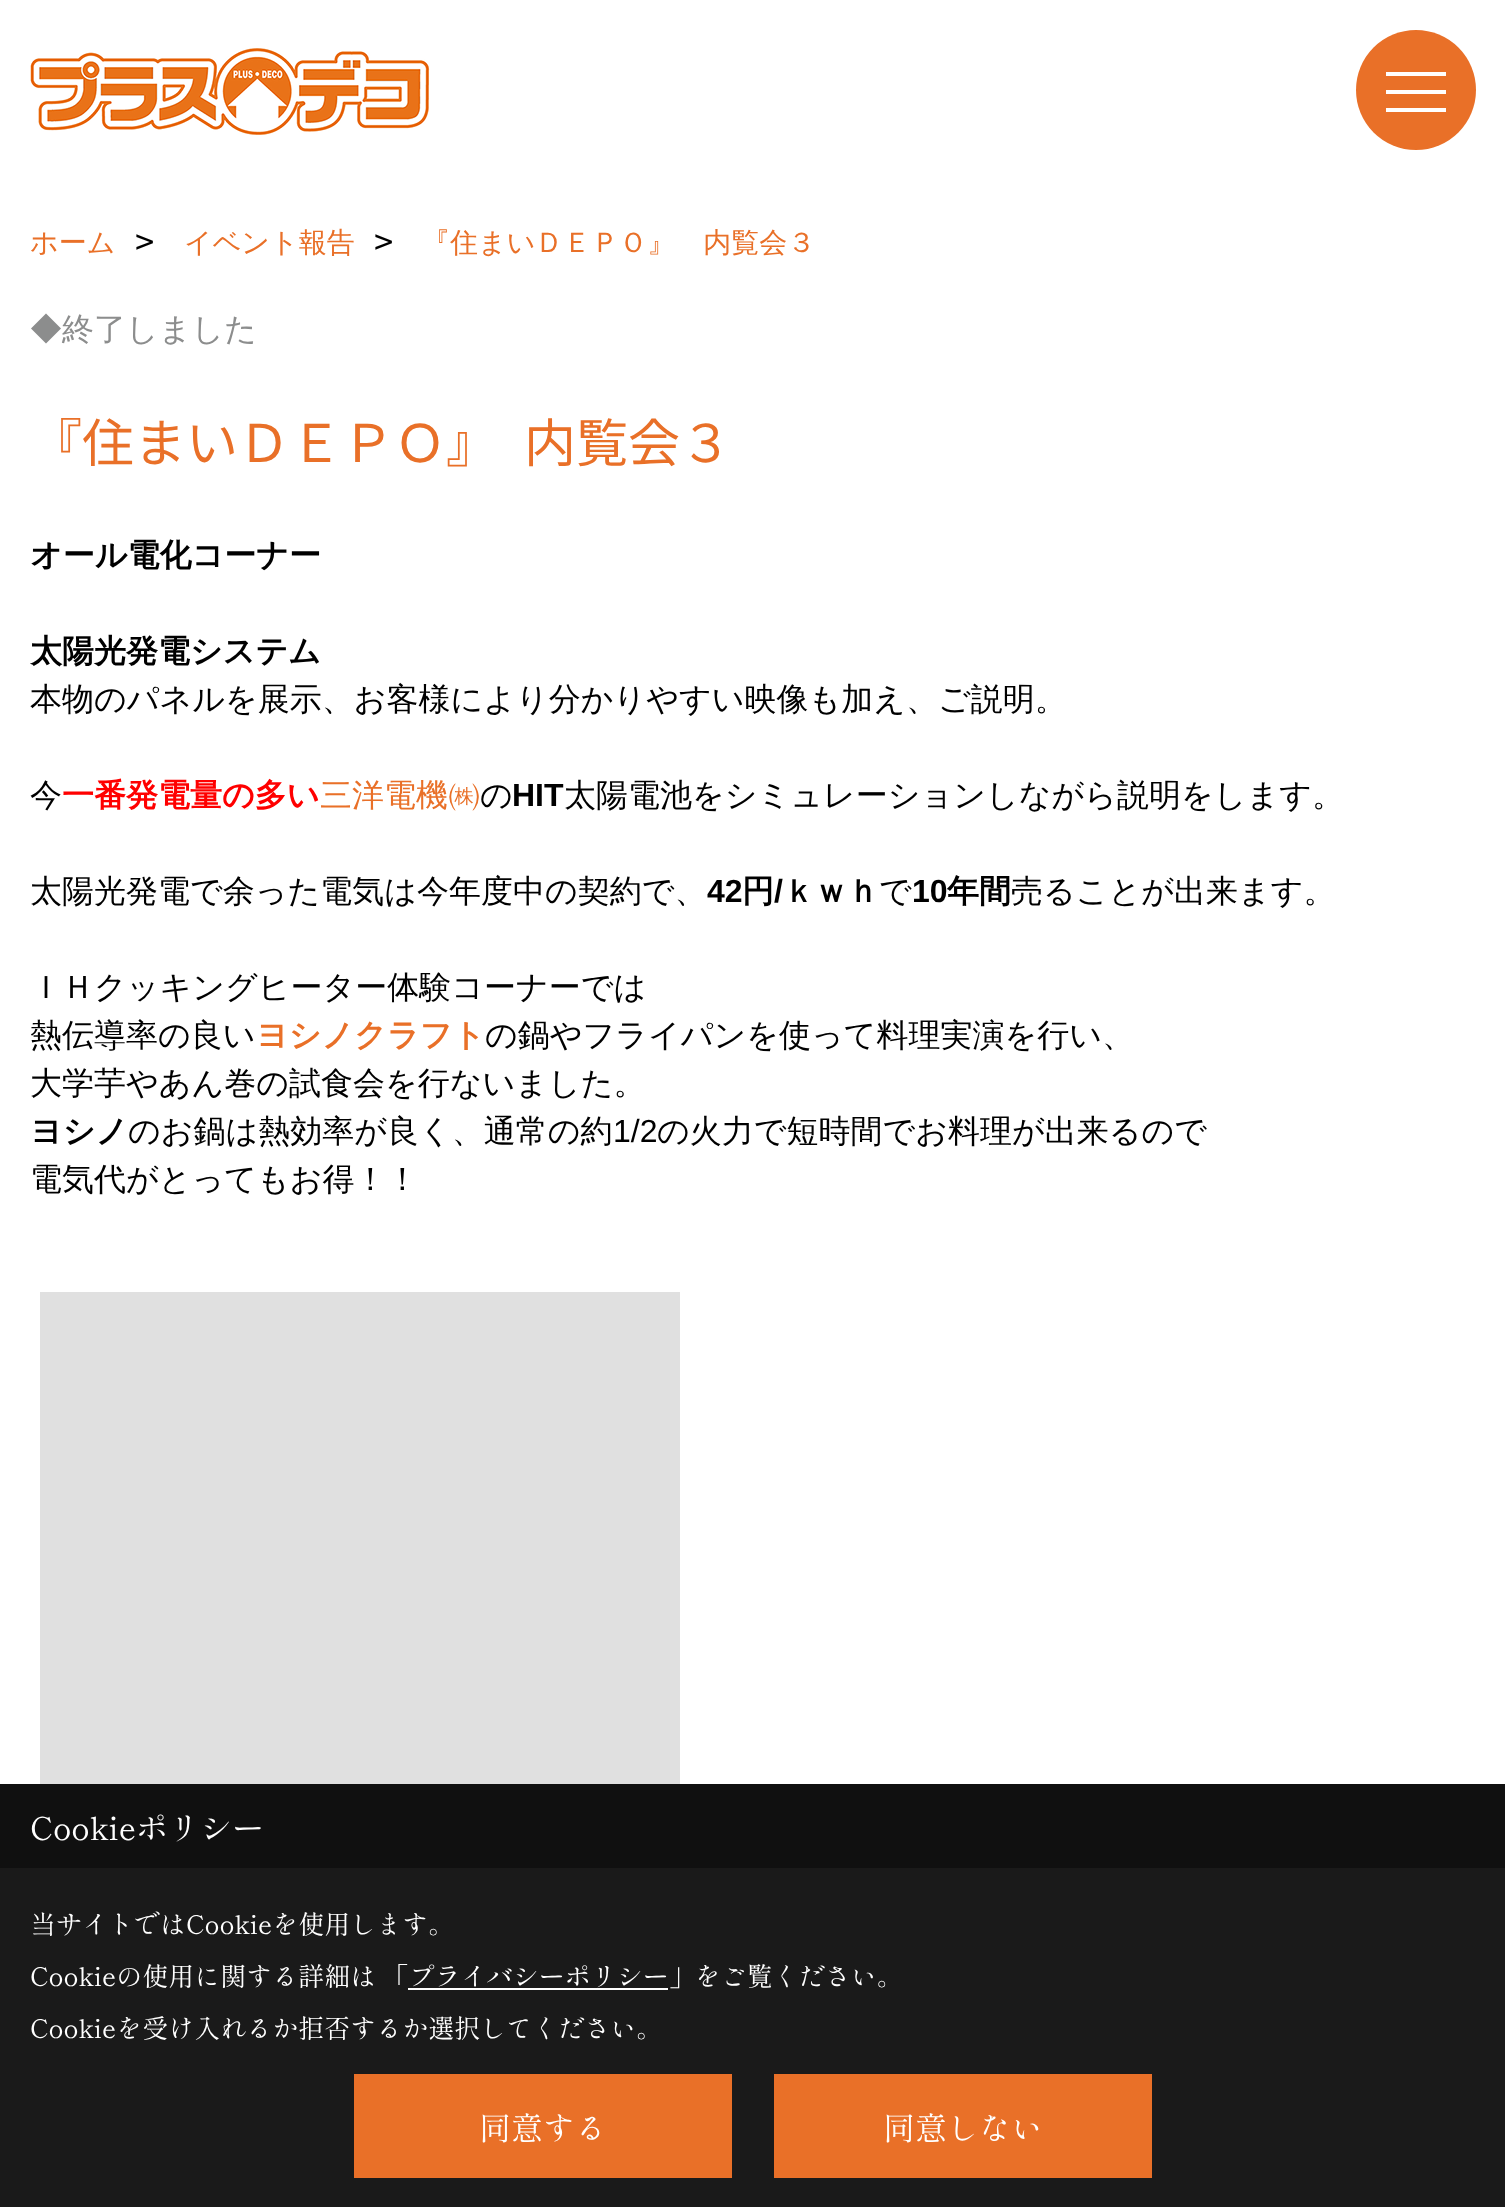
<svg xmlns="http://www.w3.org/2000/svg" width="1505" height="2207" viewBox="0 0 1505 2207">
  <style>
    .t1 { font: 500 28px WenQuanYi Zen Hei; fill: #e97028; }
    .t2 { font: 32px DejaVu Sans Mono; fill: #000; }
    .t3 { font: 500 32px WenQuanYi Zen Hei; fill: #8c8d8d; }
    .t4 { font: 100 52px Noto Sans JP; fill: #e97028; }
    .t5 { font: bold 32px WenQuanYi Zen Hei; fill: #000; }
    .t6 { font: 500 32px WenQuanYi Zen Hei; fill: #000; }
    .t7 { font: bold 32px WenQuanYi Zen Hei; fill: #f00; }
    .t8 { font: 500 32px WenQuanYi Zen Hei; fill: #e97028; }
    .t9 { font: bold 32px Liberation Sans; fill: #000; }
    .t10 { font: bold 32px WenQuanYi Zen Hei; fill: #e97028; }
    .t11 { font: 32px Liberation Sans; fill: #000; }
    .t12 { font: 32px Shippori Mincho; fill: #fff; }
    .t13 { font: 26px Shippori Mincho; fill: #fff; }
  </style>
  <rect width="100%" height="100%" fill="#fff"/>
  <image x="30" y="48" width="400" height="87" href="images/1.png"/>
  <circle cx="1416" cy="90" r="60" fill="#e97028"/>
  <rect x="1386" y="72" width="60" height="4" fill="#fff"/>
  <rect x="1386" y="90" width="60" height="4" fill="#fff"/>
  <rect x="1386" y="108" width="60" height="4" fill="#fff"/>
  <text x="30" y="252" class="t1">ホーム</text>
  <text x="135" y="252" class="t2">&gt;</text>
  <text x="184" y="252" class="t1">イベント報告</text>
  <text x="374" y="252" class="t2">&gt;</text>
  <text x="422" y="252" class="t1">『住まいＤＥＰＯ』　内覧会３</text>
  <text x="30" y="340" class="t3">◆終了しました</text>
  <text x="30" y="462" class="t4">『住まいＤＥＰＯ』　内覧会３</text>
  <text x="30" y="566" class="t5">オール電化コーナー</text>
  <text x="30" y="662" class="t5">太陽光発電システム</text>
  <text x="30" y="710" class="t6">本物のパネルを展示、お客様により分かりやすい映像も加え、ご説明。</text>
  <text x="30" y="806" class="t6">今</text>
  <text x="62" y="806" class="t7">一番発電量の多い</text>
  <text x="320" y="806" class="t8">三洋電機㈱</text>
  <text x="480" y="806" class="t6">の</text>
  <text x="512" y="806" class="t9">HIT</text>
  <text x="564" y="806" class="t6">太陽電池をシミュレーションしながら説明をします。</text>
  <text x="30" y="902" class="t6">太陽光発電で余った電気は今年度中の契約で、</text>
  <text x="707" y="902" class="t9">42</text>
  <text x="742" y="902" class="t5">円</text>
  <text x="774" y="902" class="t9">/</text>
  <text x="783" y="902" class="t5">ｋｗｈ</text>
  <text x="879" y="902" class="t6">で</text>
  <text x="912" y="902" class="t9">10</text>
  <text x="947" y="902" class="t5">年間</text>
  <text x="1011" y="902" class="t6">売ることが出来ます。</text>
  <text x="30" y="998" class="t6">ＩＨクッキングヒーター体験コーナーでは</text>
  <text x="30" y="1046" class="t6">熱伝導率の良い</text>
  <text x="256" y="1046" class="t10">ヨシノクラフト</text>
  <text x="485" y="1046" class="t6">の鍋やフライパンを使って料理実演を行い、</text>
  <text x="30" y="1094" class="t6">大学芋やあん巻の試食会を行ないました。</text>
  <text x="30" y="1142" class="t5">ヨシノ</text>
  <text x="128" y="1142" class="t6">のお鍋は熱効率が良く、通常の約</text>
  <text x="613" y="1142" class="t11">1/2</text>
  <text x="657" y="1142" class="t6">の火力で短時間でお料理が出来るので</text>
  <text x="30" y="1190" class="t6">電気代がとってもお得！！</text>
  <rect x="40" y="1292" width="640" height="492" fill="#e0e0e0"/>
  <rect x="0" y="1784" width="1505" height="84" fill="#101010"/>
  <text x="30" y="1840" class="t12">Cookieポリシー</text>
  <rect x="0" y="1868" width="1505" height="339" fill="#1a1a1a"/>
  <text x="30" y="1934" class="t13">当サイトではCookieを使用します。</text>
  <text x="30" y="1986" class="t13">Cookieの使用に関する詳細は 「プライバシーポリシー」をご覧ください。</text>
  <rect x="408" y="1988" width="260" height="2" fill="#fff"/>
  <text x="30" y="2038" class="t13">Cookieを受け入れるか拒否するか選択してください。</text>
  <rect x="354" y="2074" width="378" height="104" fill="#e97028"/>
  <text x="479" y="2140" class="t12">同意する</text>
  <rect x="774" y="2074" width="378" height="104" fill="#e97028"/>
  <text x="883" y="2140" class="t12">同意しない</text>
</svg>
